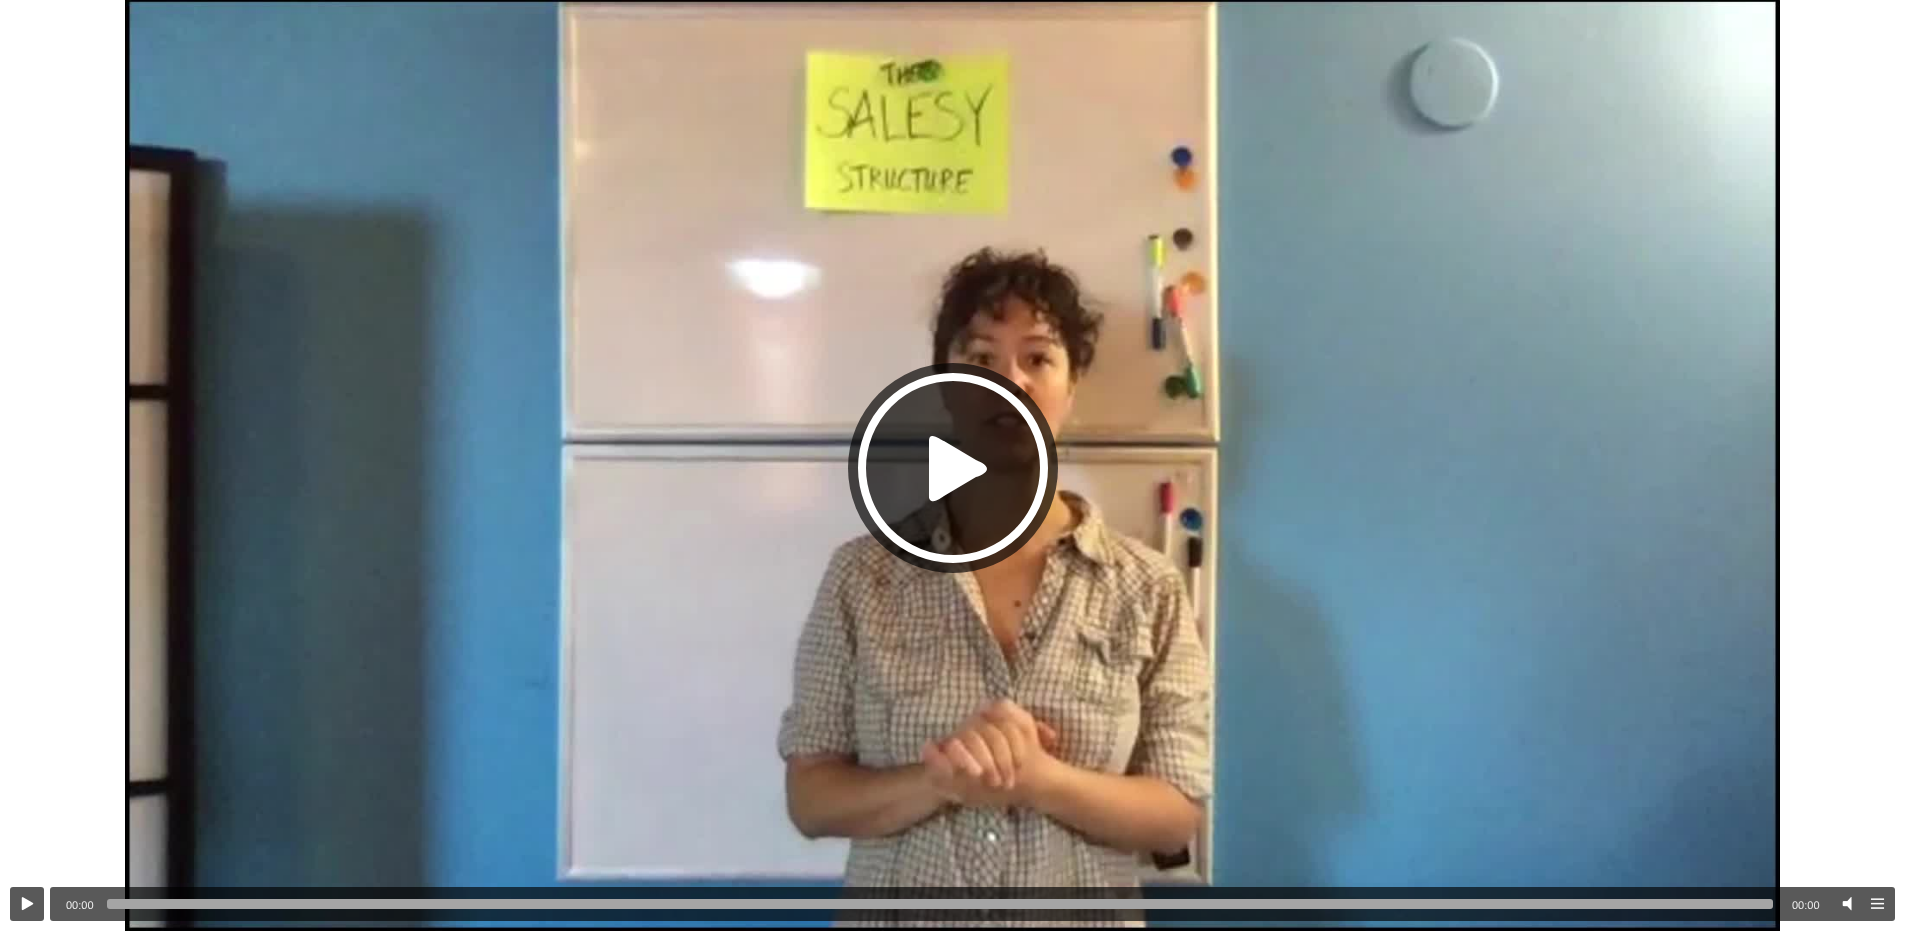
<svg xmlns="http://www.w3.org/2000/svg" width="1905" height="931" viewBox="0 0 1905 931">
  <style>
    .t1 { font: 11px Liberation Sans; fill: #eee; }
  </style>
  <rect width="100%" height="100%" fill="#fff"/>
  <image x="125" y="0" width="1655" height="931" href="images/1.png"/>
  <circle cx="953" cy="468" r="105" fill="#000000a6"/>
  <circle cx="953" cy="468" r="91" fill="none" stroke="#fff" stroke-width="8"/>
  <path d="M929 441C929 430 941 440 944 441L976 460C978 461 987 464 987 469C987 473 978 477 976 477L944 496C942 497 934 504 930 500L929 498Z" fill="#fff"/>
  <rect x="50" y="887" width="1845" height="34" rx="3" fill="#000000a6"/>
  <rect x="10" y="887" width="34" height="34" rx="3" fill="#595959"/>
  <image x="21" y="897" width="13" height="14" href="images/2.png"/>
  <rect x="107" y="899" width="1666" height="10" rx="3" fill="#a5a5a5"/>
  <image x="1842" y="897" width="10" height="14" href="images/3.png"/>
  <image x="1870" y="898" width="15" height="11" href="images/4.png"/>
  <text x="66" y="909" class="t1">00:00</text>
  <text x="1792" y="909" class="t1">00:00</text>
</svg>
